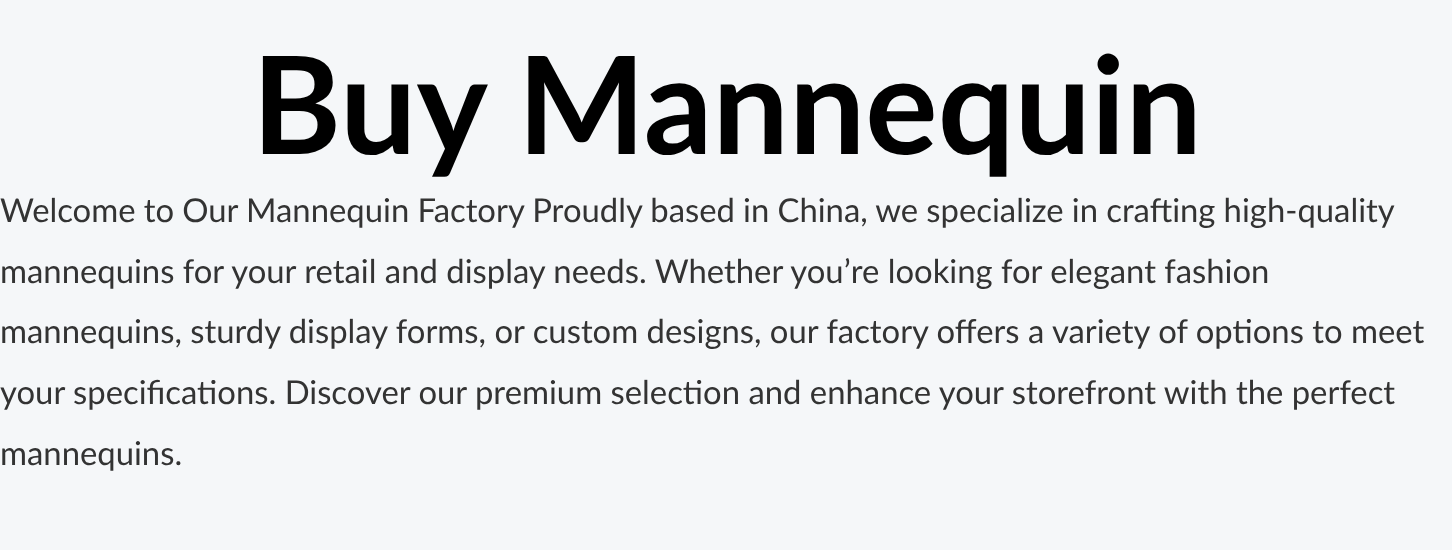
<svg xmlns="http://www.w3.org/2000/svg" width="1452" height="550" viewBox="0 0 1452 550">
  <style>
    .t1 { font: bold 135.5px Lato; fill: #000; }
    .t2 { font: 32.85px Lato; fill: #333; }
  </style>
  <rect width="100%" height="100%" fill="#f5f7f9"/>
  <text x="252" y="154" class="t1">Buy Mannequin</text>
  <text x="0" y="222" word-spacing="-0.2" class="t2">Welcome to Our Mannequin Factory Proudly based in China, we specialize in crafting high-quality</text>
  <text x="0" y="283" class="t2">mannequins for your retail and display needs. Whether you’re looking for elegant fashion</text>
  <text x="0" y="343" class="t2">mannequins, sturdy display forms, or custom designs, our factory offers a variety of options to meet</text>
  <text x="0" y="404" class="t2">your specifications. Discover our premium selection and enhance your storefront with the perfect</text>
  <text x="0" y="465" class="t2">mannequins.</text>
</svg>
